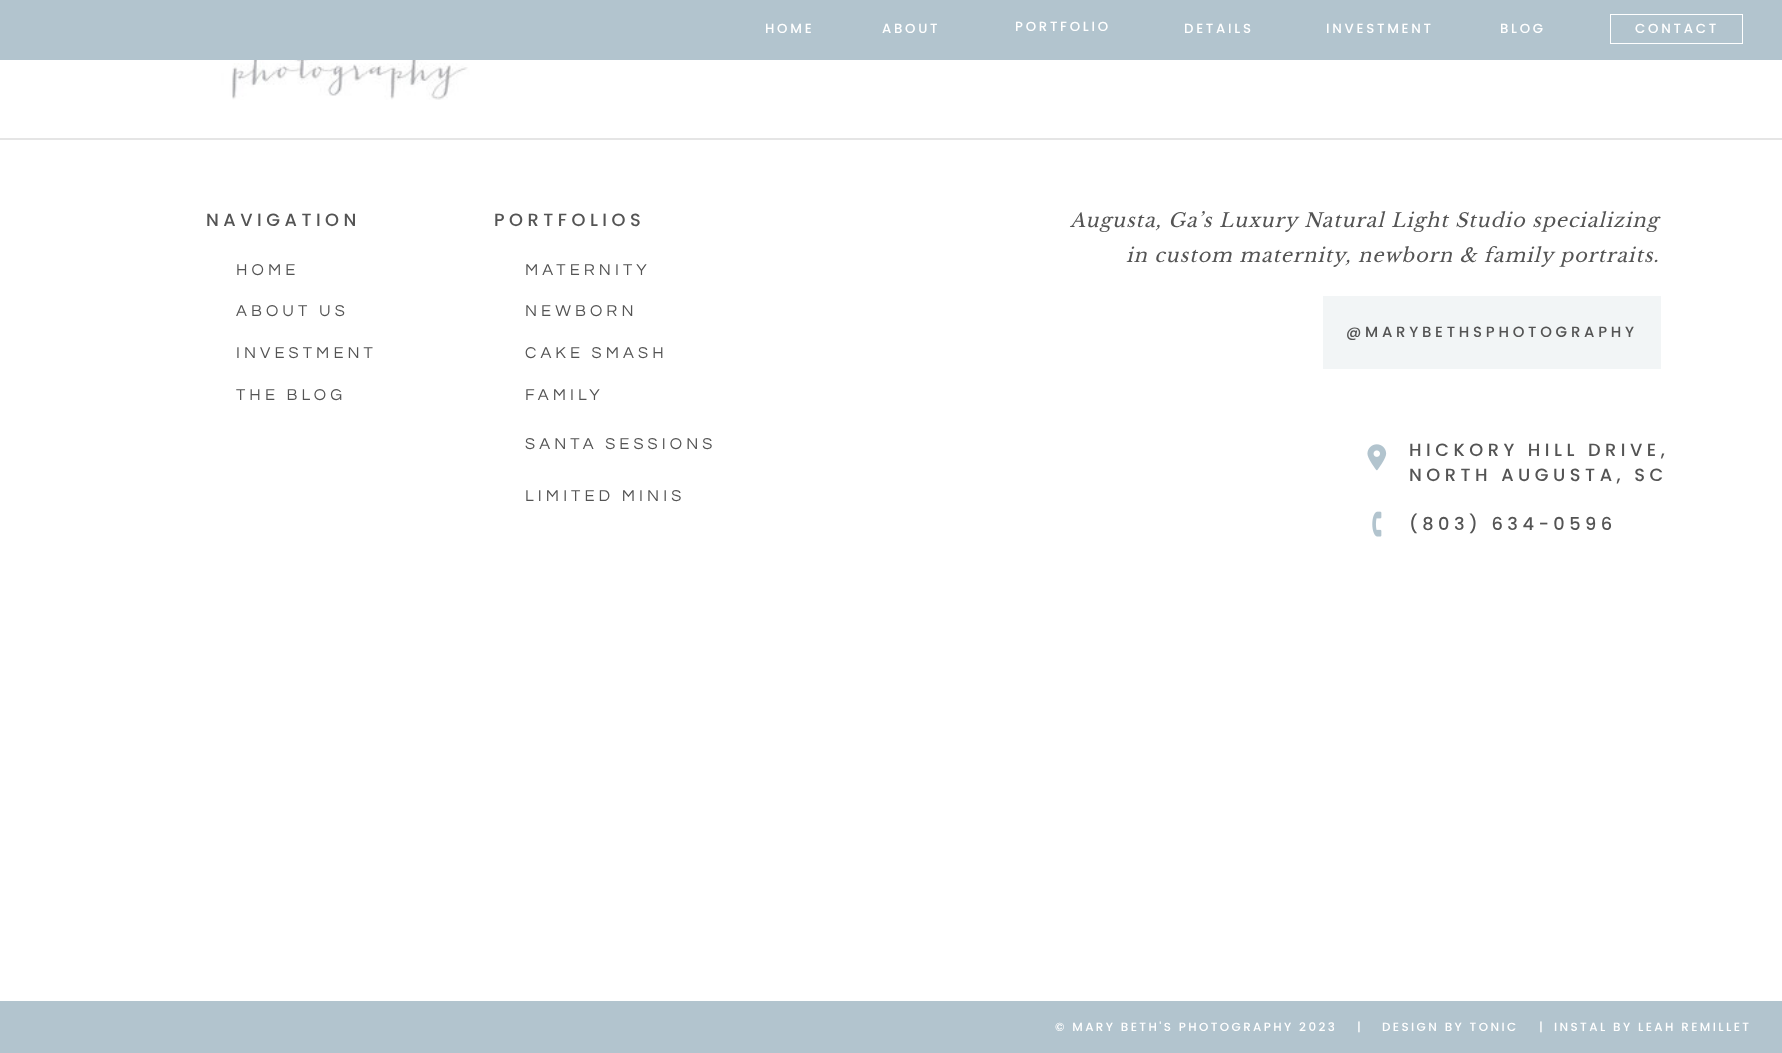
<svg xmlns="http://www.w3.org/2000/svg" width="1782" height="1053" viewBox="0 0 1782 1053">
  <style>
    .t1 { font: 500 13.25px Poppins; letter-spacing: 2.75px; fill: #fff; }
    .t2 { font: 500 17.8px Poppins; letter-spacing: 4.5px; fill: #545454; }
    .t3 { font: italic 19.3px Libre Baskerville; letter-spacing: 0.97px; fill: #545454; }
    .t4 { font: 16.4px Questrial; letter-spacing: 4.1px; fill: #545454; }
    .t5 { font: 500 14.9px Poppins; letter-spacing: 3.75px; fill: #545454; }
    .t6 { font: 500 11.9px Poppins; letter-spacing: 2.4px; fill: #fff; }
  </style>
  <rect width="100%" height="100%" fill="#fff"/>
  <rect x="0" y="0" width="1782" height="60" fill="#b2c4ce"/>
  <text x="765" y="33" class="t1">HOME</text>
  <text x="882" y="33" class="t1">ABOUT</text>
  <text x="1015" y="31" class="t1">PORTFOLIO</text>
  <text x="1184" y="33" class="t1">DETAILS</text>
  <text x="1326" y="33" class="t1">INVESTMENT</text>
  <text x="1500" y="33" class="t1">BLOG</text>
  <rect x="1610.5" y="14.5" width="132" height="29" fill="none" stroke="#fff"/>
  <text x="1635" y="33" class="t1">CONTACT</text>
  <image x="211" y="60" width="269" height="40" href="images/1.png"/>
  <rect x="0" y="138" width="1782" height="2" fill="#e5e5e5"/>
  <text x="206" y="226" class="t2">NAVIGATION</text>
  <text x="494" y="226" class="t2">PORTFOLIOS</text>
  <text x="1070" y="227" class="t3">Augusta, Ga’s Luxury Natural Light Studio specializing</text>
  <text x="1126" y="262" class="t3">in custom maternity, newborn &amp; family portraits.</text>
  <text x="236" y="275" class="t4">HOME</text>
  <text x="525" y="275" class="t4">MATERNITY</text>
  <text x="236" y="316" class="t4">ABOUT US</text>
  <text x="525" y="316" class="t4">NEWBORN</text>
  <rect x="1323" y="296" width="338" height="73" fill="#f2f5f6"/>
  <text x="1346" y="337" class="t5">@MARYBETHSPHOTOGRAPHY</text>
  <text x="236" y="358" class="t4">INVESTMENT</text>
  <text x="525" y="358" class="t4">CAKE SMASH</text>
  <text x="236" y="400" class="t4">THE BLOG</text>
  <text x="525" y="400" class="t4">FAMILY</text>
  <text x="525" y="449" class="t4">SANTA SESSIONS</text>
  <image x="1367" y="444" width="20" height="27" href="images/2.png"/>
  <text x="1409" y="456" class="t2">HICKORY HILL DRIVE,</text>
  <text x="1409" y="481" class="t2">NORTH AUGUSTA, SC</text>
  <text x="525" y="501" class="t4">LIMITED MINIS</text>
  <image x="1372" y="511" width="10" height="26" href="images/3.png"/>
  <text x="1409" y="530" class="t2">(803) 634-0596</text>
  <rect x="0" y="1001" width="1782" height="52" fill="#b2c4ce"/>
  <text x="1055" y="1031" class="t6">© MARY BETH'S PHOTOGRAPHY 2023</text>
  <text x="1357" y="1031" class="t6">|</text>
  <text x="1382" y="1031" class="t6">DESIGN BY TONIC</text>
  <text x="1539" y="1031" class="t6">|</text>
  <text x="1554" y="1031" class="t6">INSTAL BY LEAH REMILLET</text>
</svg>
